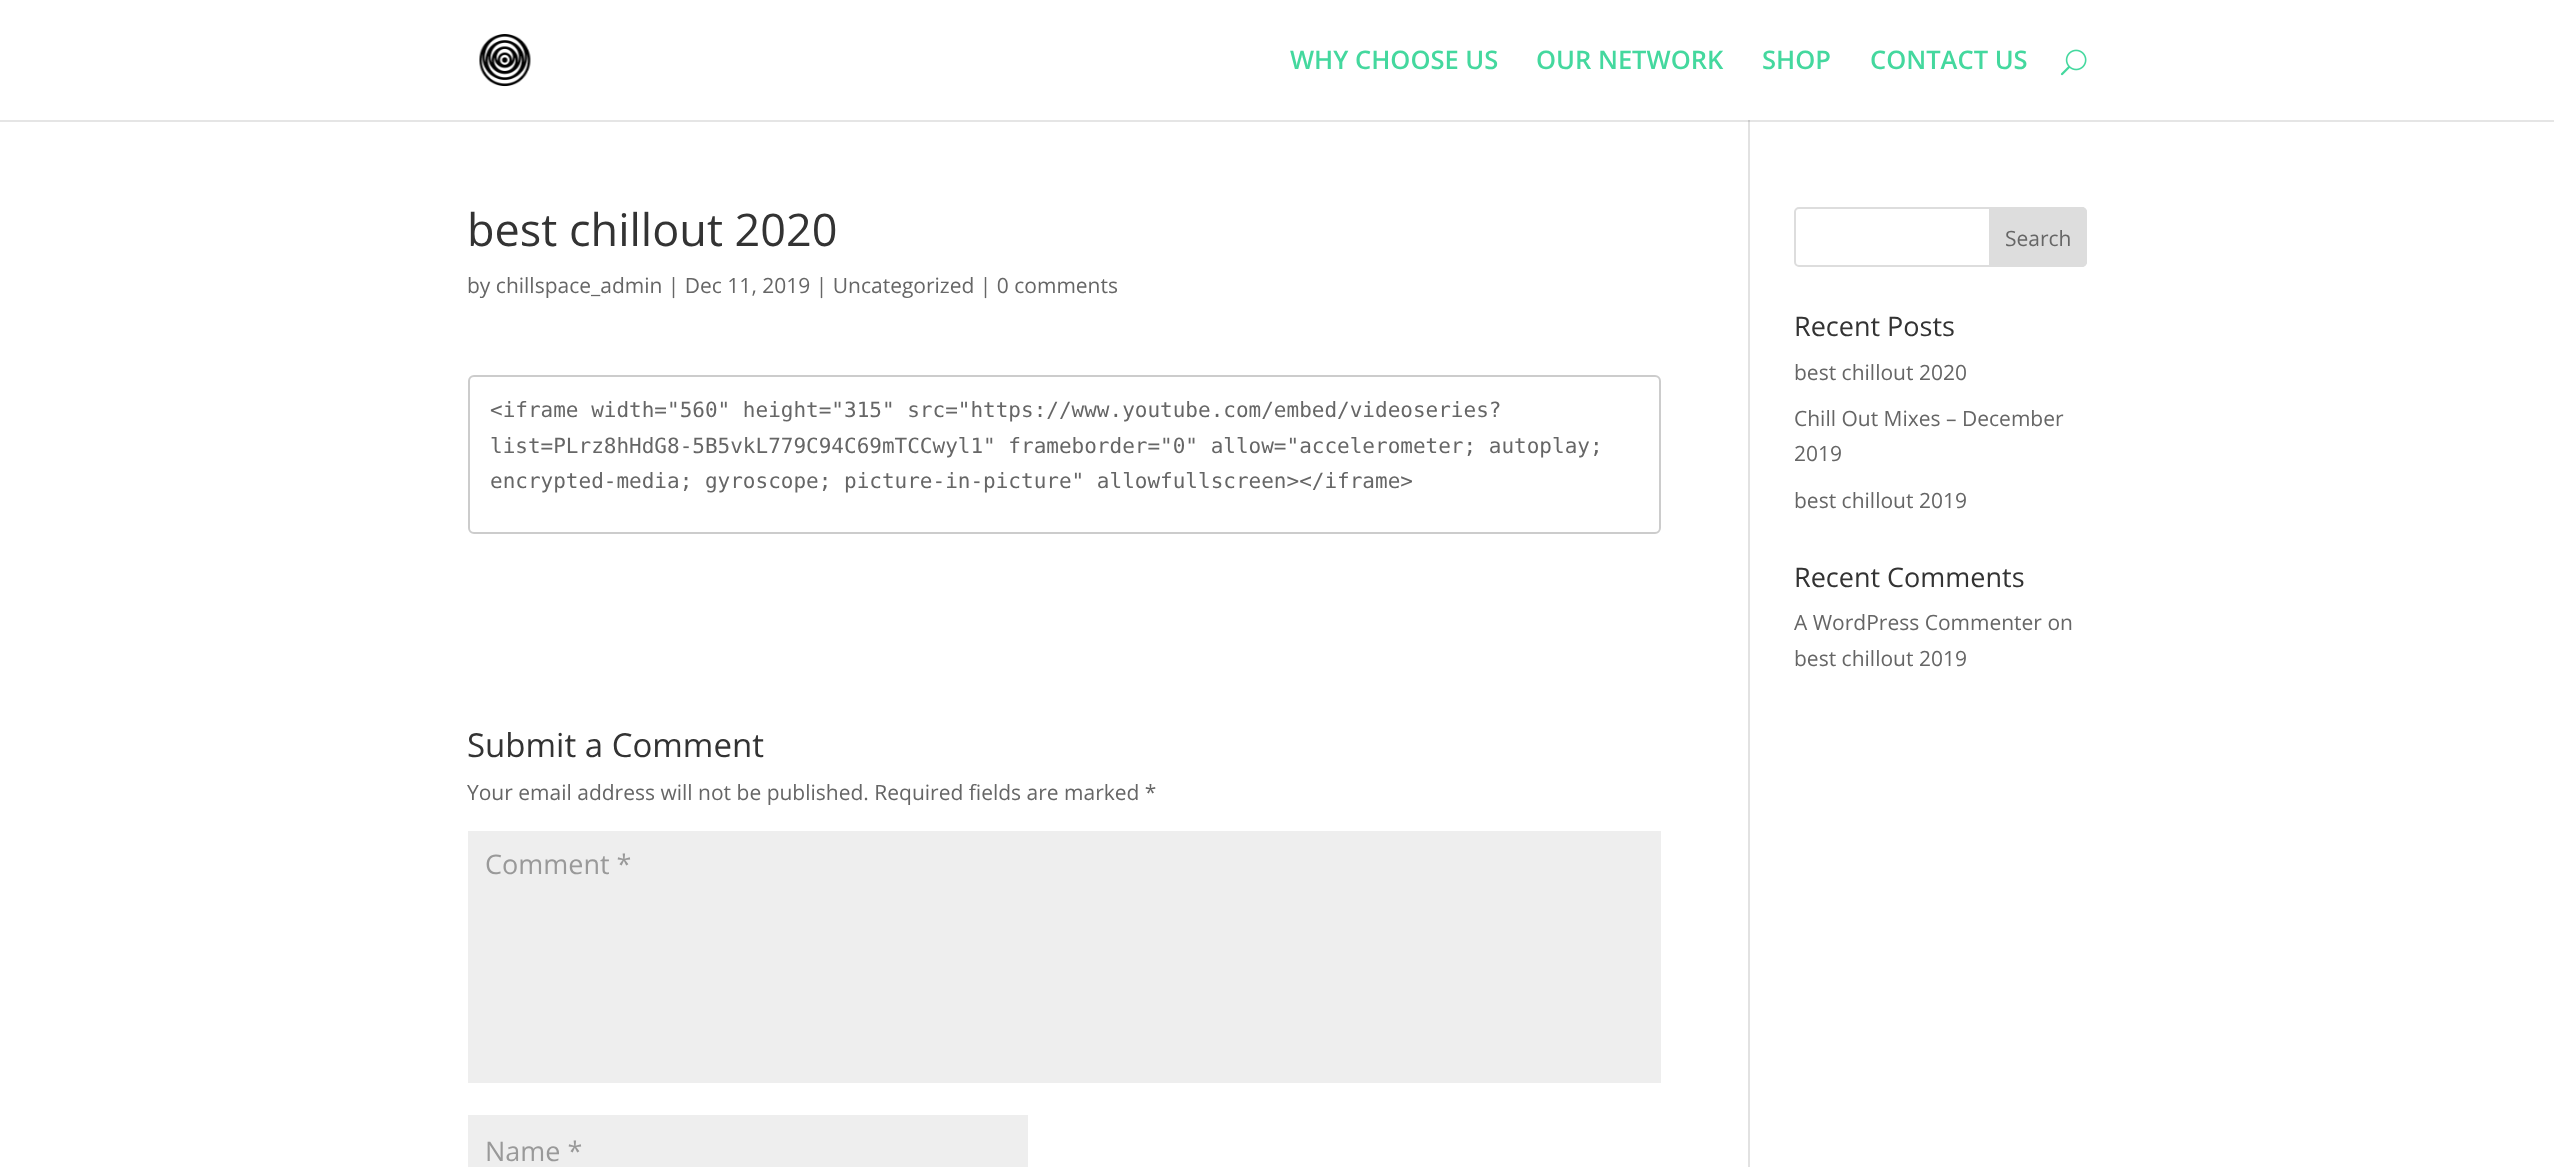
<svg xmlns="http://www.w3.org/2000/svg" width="2554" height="1167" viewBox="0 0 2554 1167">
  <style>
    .t1 { font: 600 25.5px Open Sans; fill: #44d89e; }
    .t2 { font: 45px Open Sans; fill: #333; }
    .t3 { font: 21px Open Sans; fill: #666; }
    .t4 { font: 21px DejaVu Sans Mono; fill: #666; }
    .t5 { font: 33px Open Sans; fill: #333; }
    .t6 { font: 27px Open Sans; fill: #999; }
    .t7 { font: 27px Open Sans; fill: #333; }
  </style>
  <rect width="100%" height="100%" fill="#fff"/>
  <rect x="1748" y="120" width="2" height="1047" fill="#e2e2e2"/>
  <path d="M0 120V122H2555V2H2554V120Z" fill="#0000001a"/>
  <image x="479" y="34" width="52" height="53" href="images/1.png"/>
  <text x="1290" y="69" class="t1">WHY CHOOSE US</text>
  <text x="1536" y="69" class="t1">OUR NETWORK</text>
  <text x="1762" y="69" class="t1">SHOP</text>
  <text x="1870" y="69" class="t1">CONTACT US</text>
  <image x="2060" y="49" width="27" height="27" href="images/2.png"/>
  <text x="467" y="246" class="t2">best chillout 2020</text>
  <text x="467" y="293" class="t3">by chillspace_admin | Dec 11, 2019 | Uncategorized | 0 comments</text>
  <rect x="469" y="376" width="1191" height="157" rx="5" fill="none" stroke="#ccc" stroke-width="2"/>
  <text x="490" y="417" class="t4">&lt;iframe width="560" height="315" src="https://www.youtube.com/embed/videoseries?</text>
  <text x="490" y="453" class="t4">list=PLrz8hHdG8-5B5vkL779C94C69mTCCwyl1" frameborder="0" allow="accelerometer; autoplay;</text>
  <text x="490" y="488" class="t4">encrypted-media; gyroscope; picture-in-picture" allowfullscreen&gt;&lt;/iframe&gt;</text>
  <text x="467" y="757" class="t5">Submit a Comment</text>
  <text x="467" y="800" class="t3">Your email address will not be published. Required fields are marked *</text>
  <rect x="468" y="831" width="1193" height="252" fill="#eee"/>
  <text x="485" y="874" class="t6">Comment *</text>
  <rect x="468" y="1115" width="560" height="52" fill="#eee"/>
  <text x="485" y="1161" class="t6">Name *</text>
  <rect x="1795" y="208" width="291" height="58" rx="4" fill="none" stroke="#ddd" stroke-width="2"/>
  <path d="M1990 208H2082C2084 208 2086 210 2086 212V262C2086 264 2084 266 2082 266H1990Z" fill="#ddd" stroke="#ddd" stroke-width="2"/>
  <text x="2005" y="246" class="t3">Search</text>
  <text x="1794" y="336" class="t7">Recent Posts</text>
  <text x="1794" y="380" class="t3">best chillout 2020</text>
  <text x="1794" y="426" class="t3">Chill Out Mixes – December</text>
  <text x="1794" y="461" class="t3">2019</text>
  <text x="1794" y="508" class="t3">best chillout 2019</text>
  <text x="1794" y="587" class="t7">Recent Comments</text>
  <text x="1794" y="630" class="t3">A WordPress Commenter on</text>
  <text x="1794" y="666" class="t3">best chillout 2019</text>
</svg>
